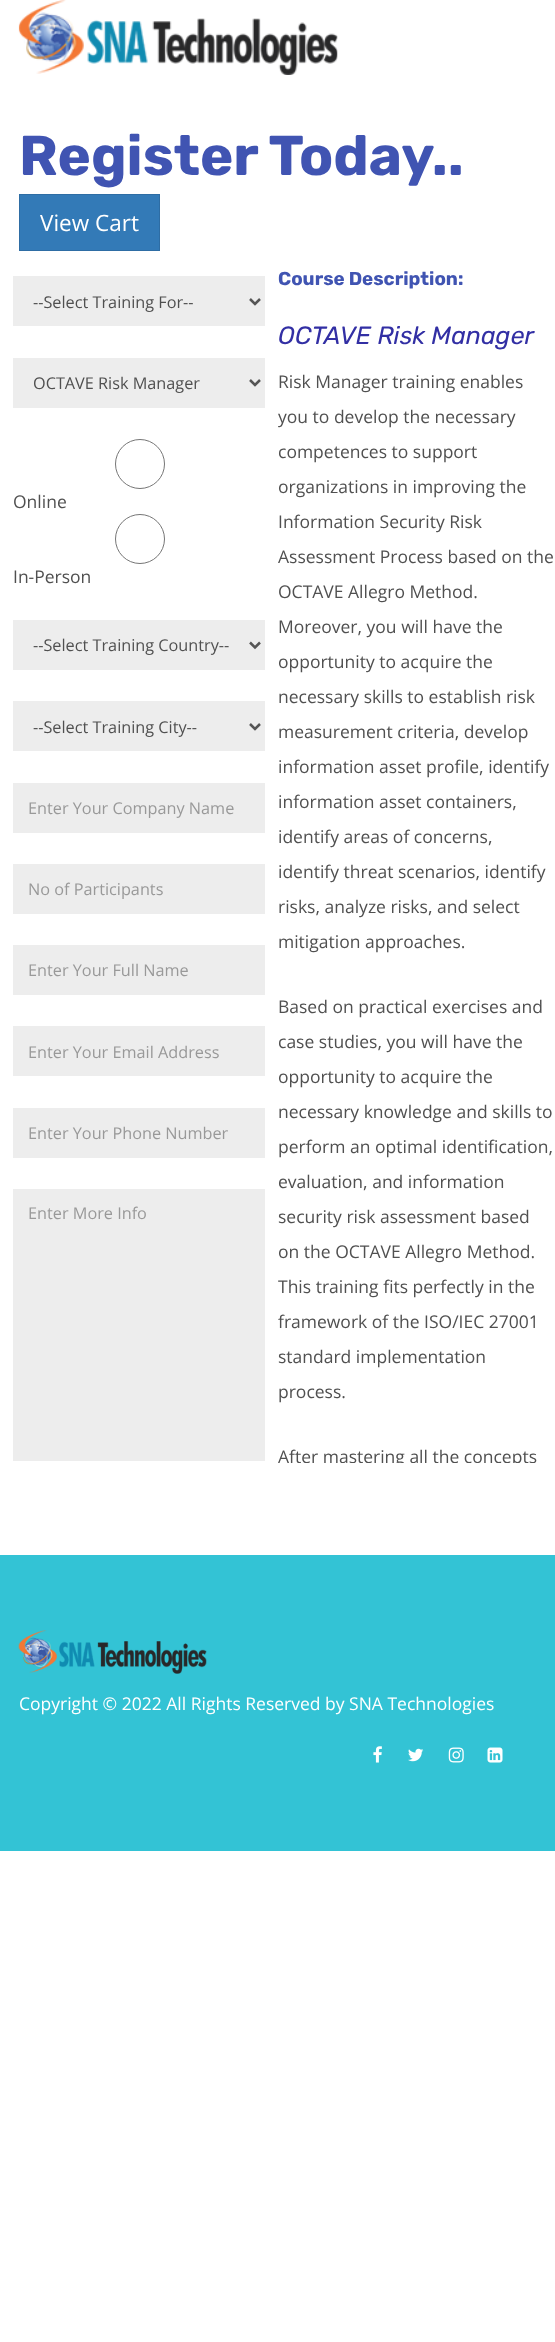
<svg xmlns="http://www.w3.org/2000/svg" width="555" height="2342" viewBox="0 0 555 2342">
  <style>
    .t1 { font: bold 56.25px Rubik; fill: #4054b2; }
    .t2 { font: 22.5px Open Sans; fill: #fff; }
    .t3 { font: 16.25px Open Sans; fill: #505050; }
    .t4 { font: 17.5px Open Sans; fill: #505050; }
    .t5 { font: 16.25px Open Sans; fill: #999; }
    .t6 { font: bold 18.75px Rubik; fill: #4054b2; }
    .t7 { font: italic 25px Rubik; fill: #322fa4; }
    .t8 { font: 17.5px Open Sans; fill: #fff; }
  </style>
  <defs>
    <clipPath id="clip1"><rect x="278" y="306" width="277" height="1157"/></clipPath>
  </defs>
  <rect width="100%" height="100%" fill="#fff"/>
  <image x="18" y="0" width="320" height="75" href="images/1.png"/>
  <text x="19" y="175" class="t1">Register Today..</text>
  <rect x="19.5" y="194.5" width="140" height="56" fill="#337ab7" stroke="#2e6da4"/>
  <text x="40" y="231" class="t2">View Cart</text>
  <rect x="13" y="276" width="252" height="50" fill="#ededed"/>
  <path d="M250 299L255 304L260 299" fill="none" stroke="#555" stroke-width="2.5"/>
  <text x="33" y="308" class="t3">--Select Training For--</text>
  <rect x="13" y="358" width="252" height="50" fill="#ededed"/>
  <path d="M250 380L255 385L260 380" fill="none" stroke="#555" stroke-width="2.5"/>
  <text x="33" y="389" class="t3">OCTAVE Risk Manager</text>
  <circle cx="140" cy="464" r="24.5" fill="none" stroke="#767676"/>
  <text x="13" y="508" class="t4">Online</text>
  <circle cx="140" cy="539" r="24.5" fill="none" stroke="#767676"/>
  <text x="13" y="583" class="t4">In-Person</text>
  <rect x="13" y="620" width="252" height="50" fill="#ededed"/>
  <path d="M250 642.5L255 647.5L260 642.5" fill="none" stroke="#555" stroke-width="2.5"/>
  <text x="33" y="651" class="t3">--Select Training Country--</text>
  <rect x="13" y="701" width="252" height="50" fill="#ededed"/>
  <path d="M250 724L255 729L260 724" fill="none" stroke="#555" stroke-width="2.5"/>
  <text x="33" y="733" class="t3">--Select Training City--</text>
  <rect x="13" y="783" width="252" height="50" fill="#ededed"/>
  <text x="28" y="814" class="t5">Enter Your Company Name</text>
  <rect x="13" y="864" width="252" height="50" fill="#ededed"/>
  <text x="28" y="895" class="t5">No of Participants</text>
  <rect x="13" y="945" width="252" height="50" fill="#ededed"/>
  <text x="28" y="976" class="t5">Enter Your Full Name</text>
  <rect x="13" y="1026" width="252" height="50" fill="#ededed"/>
  <text x="28" y="1058" class="t5">Enter Your Email Address</text>
  <rect x="13" y="1108" width="252" height="50" fill="#ededed"/>
  <text x="28" y="1139" class="t5">Enter Your Phone Number</text>
  <rect x="13" y="1189" width="252" height="272" fill="#ededed"/>
  <text x="28" y="1219" class="t5">Enter More Info</text>
  <text x="278" y="285" class="t6">Course Description:</text>
  <text x="278" y="344" class="t7">OCTAVE Risk Manager</text>
  <text x="278" y="388" class="t4">Risk Manager training enables</text>
  <g clip-path="url(#clip1)">
    <text x="278" y="423" class="t4">you to develop the necessary</text>
  </g>
  <text x="278" y="458" class="t4">competences to support</text>
  <text x="278" y="493" class="t4">organizations in improving the</text>
  <text x="278" y="528" class="t4">Information Security Risk</text>
  <text x="278" y="563" class="t4">Assessment Process based on the</text>
  <text x="278" y="598" class="t4">OCTAVE Allegro Method.</text>
  <text x="278" y="633" class="t4">Moreover, you will have the</text>
  <text x="278" y="668" class="t4">opportunity to acquire the</text>
  <text x="278" y="703" class="t4">necessary skills to establish risk</text>
  <text x="278" y="738" class="t4">measurement criteria, develop</text>
  <text x="278" y="773" class="t4">information asset profile, identify</text>
  <text x="278" y="808" class="t4">information asset containers,</text>
  <text x="278" y="843" class="t4">identify areas of concerns,</text>
  <text x="278" y="878" class="t4">identify threat scenarios, identify</text>
  <text x="278" y="913" class="t4">risks, analyze risks, and select</text>
  <text x="278" y="948" class="t4">mitigation approaches.</text>
  <text x="278" y="1013" class="t4">Based on practical exercises and</text>
  <text x="278" y="1048" class="t4">case studies, you will have the</text>
  <text x="278" y="1083" class="t4">opportunity to acquire the</text>
  <text x="278" y="1118" class="t4">necessary knowledge and skills to</text>
  <text x="278" y="1153" class="t4">perform an optimal identification,</text>
  <text x="278" y="1188" class="t4">evaluation, and information</text>
  <text x="278" y="1223" class="t4">security risk assessment based</text>
  <text x="278" y="1258" class="t4">on the OCTAVE Allegro Method.</text>
  <text x="278" y="1293" class="t4">This training fits perfectly in the</text>
  <text x="278" y="1328" class="t4">framework of the ISO/IEC 27001</text>
  <text x="278" y="1363" class="t4">standard implementation</text>
  <text x="278" y="1398" class="t4">process.</text>
  <g clip-path="url(#clip1)">
    <text x="278" y="1463" class="t4">After mastering all the concepts</text>
  </g>
  <rect x="0" y="1555" width="555" height="296" fill="#33c3d5"/>
  <image x="18" y="1630" width="189" height="44" href="images/2.png"/>
  <text x="19" y="1710" class="t8">Copyright © 2022 All Rights Reserved by SNA Technologies</text>
  <image x="373" y="1746" width="9" height="17" href="images/3.png"/>
  <image x="408" y="1748" width="16" height="14" href="images/4.png"/>
  <image x="448" y="1747" width="16" height="16" href="images/5.png"/>
  <image x="487" y="1747" width="16" height="16" href="images/6.png"/>
</svg>
